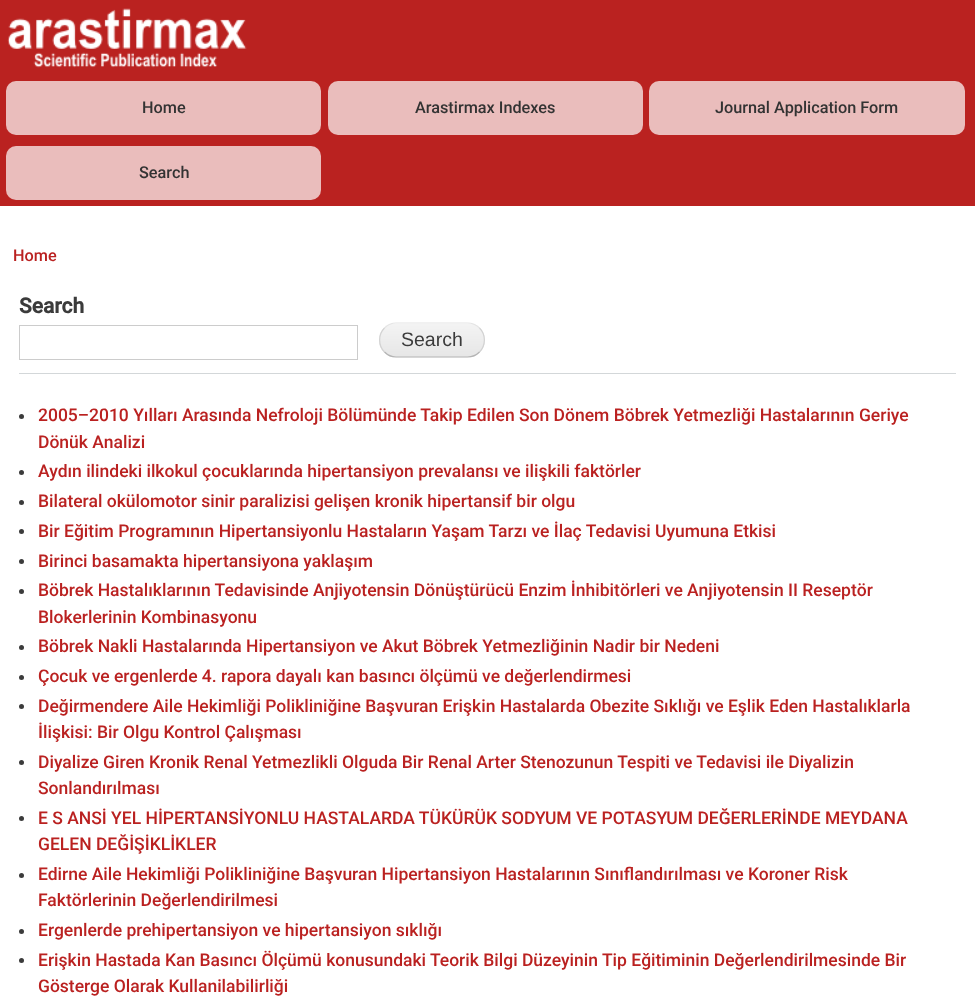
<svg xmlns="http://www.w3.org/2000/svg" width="975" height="1006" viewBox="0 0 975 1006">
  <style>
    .t1 { font: 500 16.25px Roboto; fill: #333; }
    .t2 { font: 500 16.25px Roboto; fill: #ba2120; }
    .t3 { font: bold 21px Roboto; fill: #3b3b3b; }
    .t4 { font: 19.5px Liberation Sans; fill: #3b3b3b; }
    .t5 { font: 500 17.5px Roboto; fill: #ba2120; }
  </style>
  <rect width="100%" height="100%" fill="#fff"/>
  <rect x="0" y="0" width="975" height="206" fill="#ba2220"/>
  <image x="7" y="8" width="240" height="60" href="images/1.png"/>
  <rect x="6" y="81" width="315" height="54" rx="10" fill="#eabdbc"/>
  <text x="142" y="113" class="t1">Home</text>
  <rect x="328" y="81" width="315" height="54" rx="10" fill="#eabdbc"/>
  <text x="415" y="113" class="t1">Arastirmax Indexes</text>
  <rect x="649" y="81" width="316" height="54" rx="10" fill="#eabdbc"/>
  <text x="715" y="113" class="t1">Journal Application Form</text>
  <rect x="6" y="146" width="315" height="54" rx="10" fill="#eabdbc"/>
  <text x="139" y="178" class="t1">Search</text>
  <text x="13" y="261" class="t2">Home</text>
  <rect x="19" y="373" width="937" height="1" fill="#d3d7d9"/>
  <text x="19" y="313" class="t3">Search</text>
  <rect x="19.5" y="325.5" width="338" height="34" fill="none" stroke="#ccc"/>
  <image x="379" y="324" width="106" height="34" href="images/2.png"/>
  <path d="M384.5 328C387.5 325 392 323 396 323H467.5C472 323 476.5 325 479.5 328" fill="none" stroke="#e4e4e4" stroke-width="1.2"/>
  <path d="M479.5 328C486 334.5 486 345.5 479.5 352" fill="none" stroke="#d2d2d2" stroke-width="1.2"/>
  <path d="M479.5 352C476.5 355 472 357 467.5 357H396C392 357 387.5 355 384.5 352" fill="none" stroke="#b4b4b4" stroke-width="1.2"/>
  <path d="M384.5 352C378 345.5 378 334.5 384.5 328" fill="none" stroke="#d2d2d2" stroke-width="1.2"/>
  <text x="401" y="346" class="t4">Search</text>
  <circle cx="21.5" cy="416.5" r="2.5" fill="#3b3b3b"/>
  <text x="38" y="421" class="t5">2005–2010 Yılları Arasında Nefroloji Bölümünde Takip Edilen Son Dönem Böbrek Yetmezliği Hastalarının Geriye</text>
  <text x="38" y="448" class="t5">Dönük Analizi</text>
  <circle cx="21.5" cy="472.5" r="2.5" fill="#3b3b3b"/>
  <text x="38" y="477" class="t5">Aydın ilindeki ilkokul çocuklarında hipertansiyon prevalansı ve ilişkili faktörler</text>
  <circle cx="21.5" cy="502.5" r="2.5" fill="#3b3b3b"/>
  <text x="38" y="507" class="t5">Bilateral okülomotor sinir paralizisi gelişen kronik hipertansif bir olgu</text>
  <circle cx="21.5" cy="531.5" r="2.5" fill="#3b3b3b"/>
  <text x="38" y="537" class="t5">Bir Eğitim Programının Hipertansiyonlu Hastaların Yaşam Tarzı ve İlaç Tedavisi Uyumuna Etkisi</text>
  <circle cx="21.5" cy="561.5" r="2.5" fill="#3b3b3b"/>
  <text x="38" y="567" class="t5">Birinci basamakta hipertansiyona yaklaşım</text>
  <circle cx="21.5" cy="591.5" r="2.5" fill="#3b3b3b"/>
  <text x="38" y="596" class="t5">Böbrek Hastalıklarının Tedavisinde Anjiyotensin Dönüştürücü Enzim İnhibitörleri ve Anjiyotensin II Reseptör</text>
  <text x="38" y="623" class="t5">Blokerlerinin Kombinasyonu</text>
  <circle cx="21.5" cy="647.5" r="2.5" fill="#3b3b3b"/>
  <text x="38" y="652" class="t5">Böbrek Nakli Hastalarında Hipertansiyon ve Akut Böbrek Yetmezliğinin Nadir bir Nedeni</text>
  <circle cx="21.5" cy="677.5" r="2.5" fill="#3b3b3b"/>
  <text x="38" y="682" class="t5">Çocuk ve ergenlerde 4. rapora dayalı kan basıncı ölçümü ve değerlendirmesi</text>
  <circle cx="21.5" cy="706.5" r="2.5" fill="#3b3b3b"/>
  <text x="38" y="712" class="t5">Değirmendere Aile Hekimliği Polikliniğine Başvuran Erişkin Hastalarda Obezite Sıklığı ve Eşlik Eden Hastalıklarla</text>
  <text x="38" y="738" class="t5">İlişkisi: Bir Olgu Kontrol Çalışması</text>
  <circle cx="21.5" cy="762.5" r="2.5" fill="#3b3b3b"/>
  <text x="38" y="768" class="t5">Diyalize Giren Kronik Renal Yetmezlikli Olguda Bir Renal Arter Stenozunun Tespiti ve Tedavisi ile Diyalizin</text>
  <text x="38" y="794" class="t5">Sonlandırılması</text>
  <circle cx="21.5" cy="818.5" r="2.5" fill="#3b3b3b"/>
  <text x="38" y="824" class="t5">E S ANSİ YEL HİPERTANSİYONLU HASTALARDA TÜKÜRÜK SODYUM VE POTASYUM DEĞERLERİNDE MEYDANA</text>
  <text x="38" y="850" class="t5">GELEN DEĞİŞİKLİKLER</text>
  <circle cx="21.5" cy="875.5" r="2.5" fill="#3b3b3b"/>
  <text x="38" y="880" class="t5">Edirne Aile Hekimliği Polikliniğine Başvuran Hipertansiyon Hastalarının Sınıflandırılması ve Koroner Risk</text>
  <text x="38" y="906" class="t5">Faktörlerinin Değerlendirilmesi</text>
  <circle cx="21.5" cy="931.5" r="2.5" fill="#3b3b3b"/>
  <text x="38" y="936" class="t5">Ergenlerde prehipertansiyon ve hipertansiyon sıklığı</text>
  <circle cx="21.5" cy="960.5" r="2.5" fill="#3b3b3b"/>
  <text x="38" y="966" class="t5">Erişkin Hastada Kan Basıncı Ölçümü konusundaki Teorik Bilgi Düzeyinin Tip Eğitiminin Değerlendirilmesinde Bir</text>
  <text x="38" y="992" class="t5">Gösterge Olarak Kullanilabilirliği</text>
</svg>
